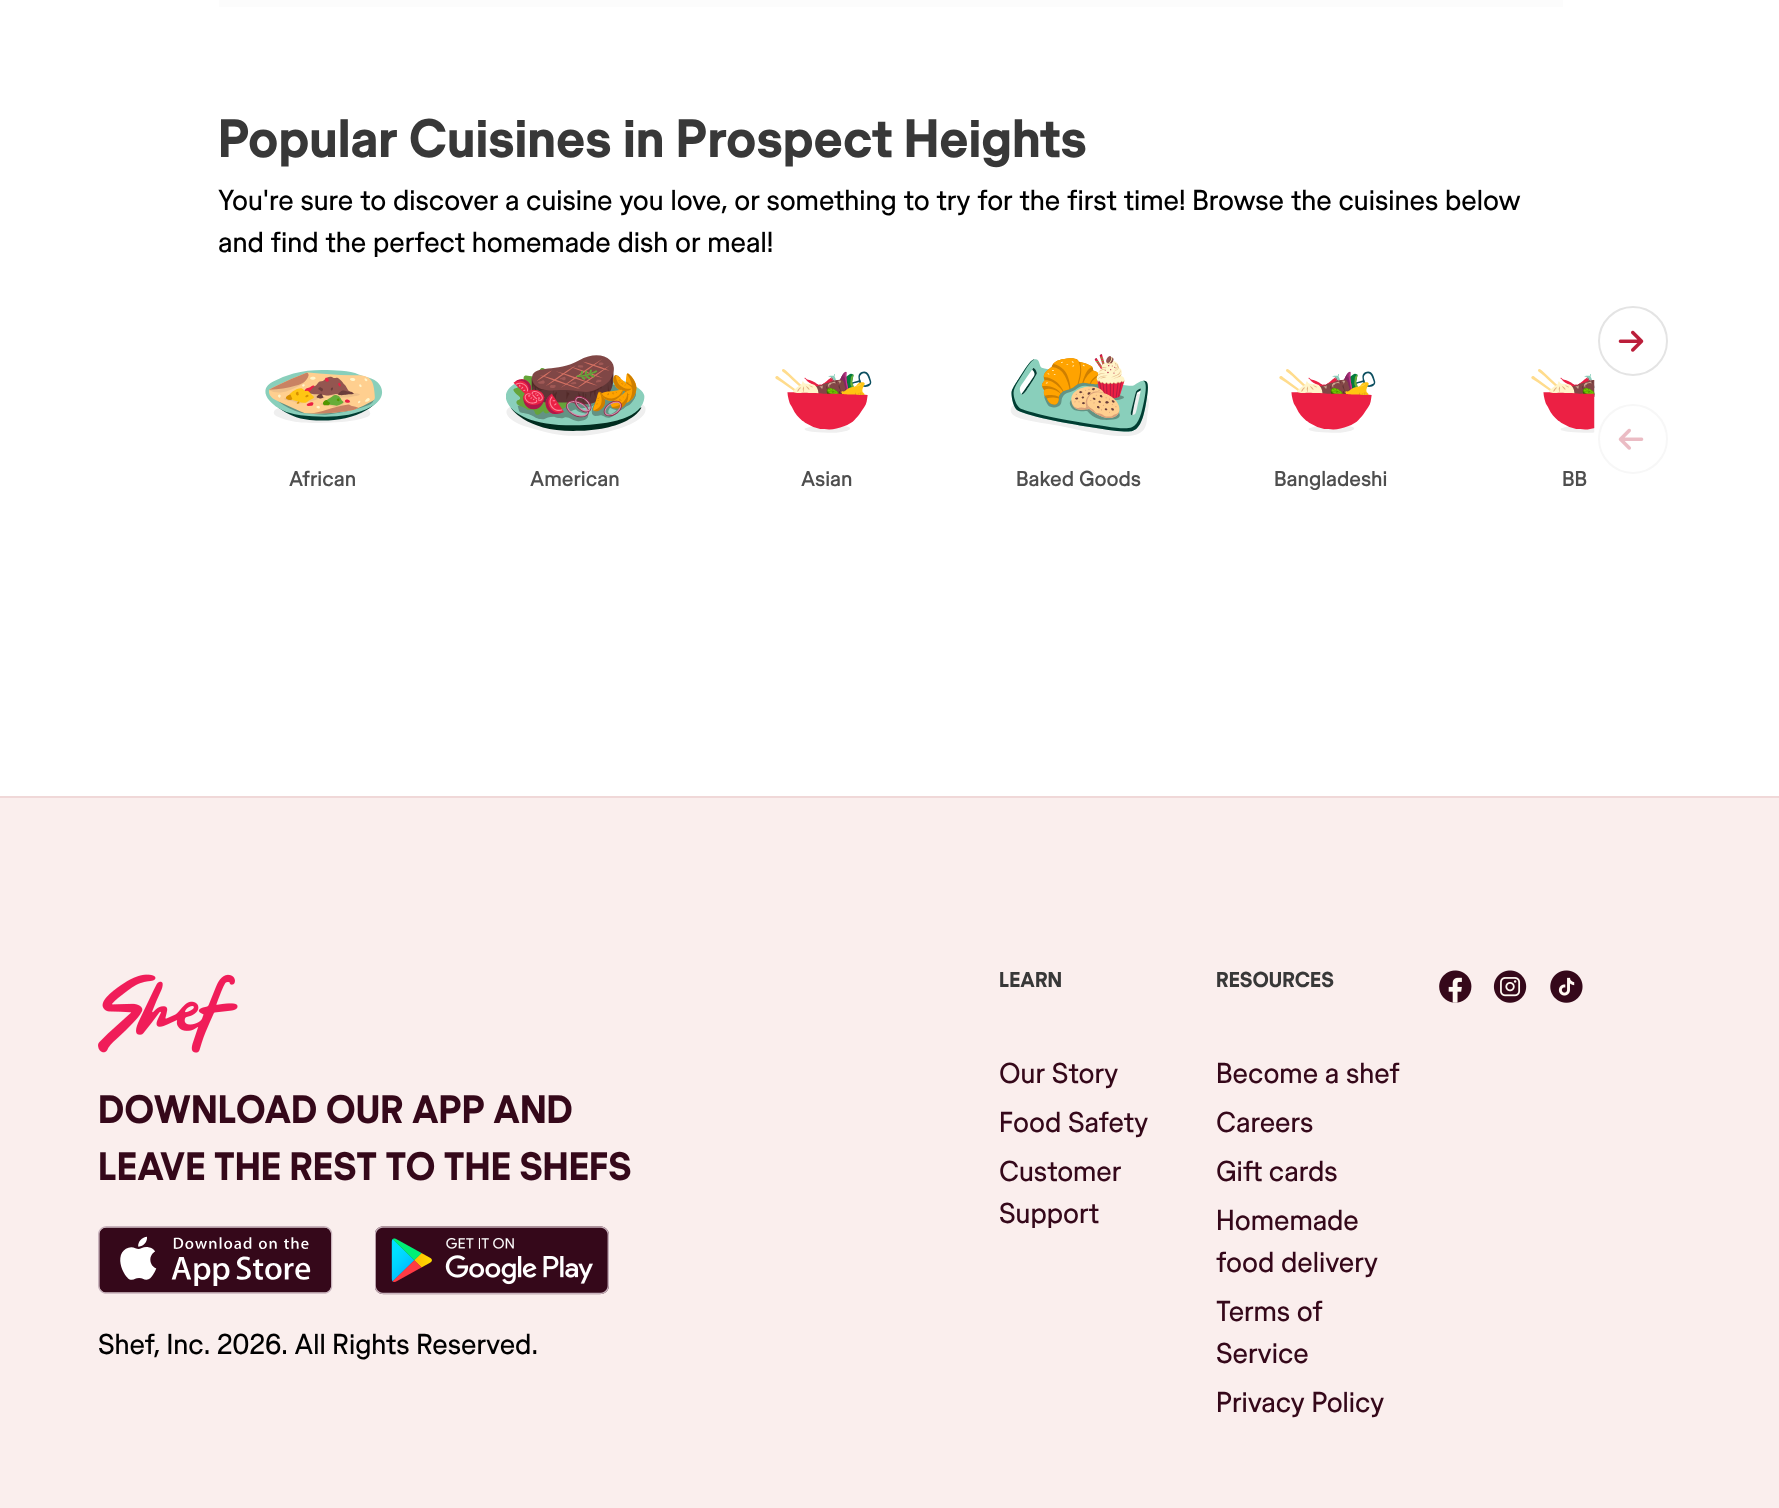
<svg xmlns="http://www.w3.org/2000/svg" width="1779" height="1508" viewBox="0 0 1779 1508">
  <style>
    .t1 { font: bold 52.5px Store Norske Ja; fill: #383838; }
    .t2 { font: 28px Store Norske Ja; fill: #000; }
    .t3 { font: 21px 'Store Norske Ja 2'; fill: #4e4e4e; }
    .t4 { font: bold 38.5px Store Norske Ja; fill: #35081a; }
    .t5 { font: bold 21px Store Norske Ja; fill: #383838; }
    .t6 { font: 28px Store Norske Ja; fill: #35081a; }
  </style>
  <rect width="100%" height="100%" fill="#fff"/>
  <rect x="219" y="0" width="1344" height="7" fill="#fcfcfc"/>
  <text x="218" y="157" class="t1">Popular Cuisines in Prospect Heights</text>
  <text x="218" y="210" class="t2">You're sure to discover a cuisine you love, or something to try for the first time! Browse the cuisines below</text>
  <text x="218" y="252" class="t2">and find the perfect homemade dish or meal!</text>
  <circle cx="1633" cy="341" r="34" fill="none" stroke="#e4e4e4" stroke-width="2"/>
  <image x="1618" y="330" width="26" height="22" href="images/1.png"/>
  <circle cx="1633" cy="439" r="34" fill="none" stroke="#f7f7f7" stroke-width="2"/>
  <image x="1618" y="428" width="26" height="22" href="images/2.png"/>
  <image x="265" y="370" width="118" height="53" href="images/3.png"/>
  <text x="289" y="486" class="t3">African</text>
  <image x="506" y="355" width="140" height="81" href="images/4.png"/>
  <text x="530" y="486" class="t3">American</text>
  <image x="775" y="369" width="97" height="64" href="images/5.png"/>
  <text x="801" y="486" class="t3">Asian</text>
  <image x="1010" y="354" width="139" height="82" href="images/6.png"/>
  <text x="1016" y="486" class="t3">Baked Goods</text>
  <image x="1279" y="369" width="97" height="64" href="images/5.png"/>
  <text x="1274" y="486" class="t3">Bangladeshi</text>
  <image x="1531" y="369" width="64" height="64" href="images/7.png"/>
  <text x="1562" y="486" class="t3">BB</text>
  <rect x="0" y="798" width="1779" height="710" fill="#faeeed"/>
  <rect x="0" y="796" width="1779" height="2" fill="#f0d8d8"/>
  <image x="98" y="974" width="140" height="79" href="images/8.png"/>
  <text x="98" y="1123" class="t4">DOWNLOAD OUR APP AND</text>
  <text x="98" y="1180" class="t4">LEAVE THE REST TO THE SHEFS</text>
  <image x="98" y="1226" width="235" height="68" href="images/9.png"/>
  <image x="375" y="1226" width="234" height="69" href="images/10.png"/>
  <text x="98" y="1354" class="t2">Shef, Inc. 2026. All Rights Reserved.</text>
  <text x="999" y="987" class="t5">LEARN</text>
  <text x="999" y="1083" class="t6">Our Story</text>
  <text x="999" y="1132" class="t6">Food Safety</text>
  <text x="999" y="1181" class="t6">Customer</text>
  <text x="999" y="1223" class="t6">Support</text>
  <text x="1216" y="987" class="t5">RESOURCES</text>
  <text x="1216" y="1083" class="t6">Become a shef</text>
  <text x="1216" y="1132" class="t6">Careers</text>
  <text x="1216" y="1181" class="t6">Gift cards</text>
  <text x="1216" y="1230" class="t6">Homemade</text>
  <text x="1216" y="1272" class="t6">food delivery</text>
  <text x="1216" y="1321" class="t6">Terms of</text>
  <text x="1216" y="1363" class="t6">Service</text>
  <text x="1216" y="1412" class="t6">Privacy Policy</text>
  <image x="1439" y="970" width="33" height="33" href="images/11.png"/>
  <image x="1493" y="970" width="34" height="33" href="images/12.png"/>
  <image x="1550" y="970" width="33" height="33" href="images/13.png"/>
</svg>
